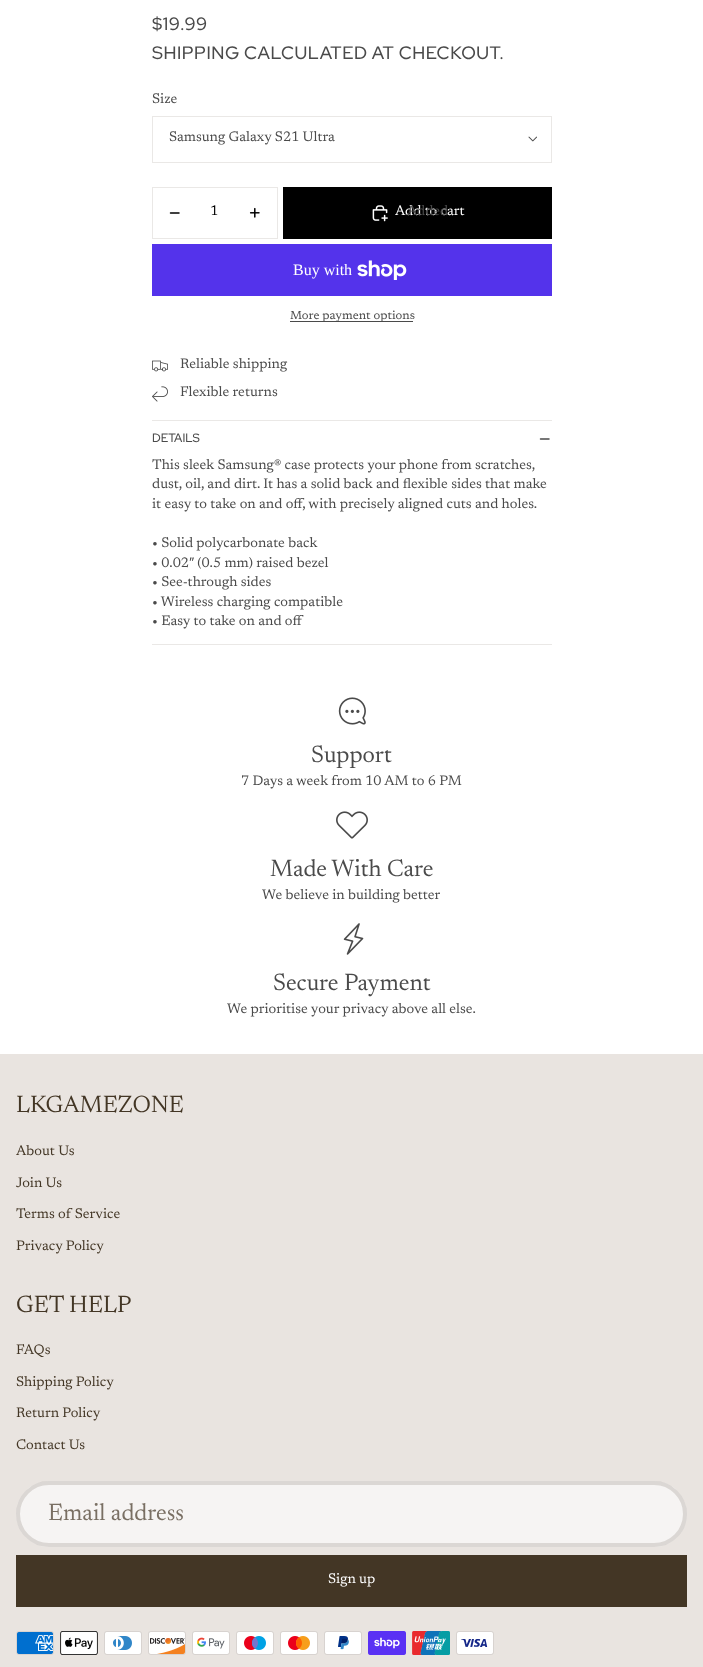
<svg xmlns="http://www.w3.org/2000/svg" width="703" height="1667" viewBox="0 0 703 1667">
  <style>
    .t1 { font: 500 18px Red Hat Display; letter-spacing: 0.55px; fill: #4a4a4a; }
    .t2 { font: 14px Newsreader; fill: #4a4a4a; }
    .t3 { font: 14px Newsreader; fill: #000; }
    .t4 { font: 14px Newsreader; fill: #fff; }
    .t5 { font: 16px Liberation Serif; fill: #fff; }
    .t6 { font: 11.75px 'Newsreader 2'; fill: #4a4a4a; }
    .t7 { font: 500 12px Red Hat Display; fill: #4a4a4a; }
    .t8 { font: 24px 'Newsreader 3'; fill: #4a4a4a; }
    .t9 { font: 24px 'Newsreader 3'; fill: #433625; }
    .t10 { font: 14px Newsreader; fill: #433625; }
    .t11 { font: 24px 'Newsreader 3'; fill: #796f63; }
  </style>
  <rect width="100%" height="100%" fill="#fff"/>
  <text x="152" y="30" class="t1">$19.99</text>
  <text x="152" y="59" class="t1">SHIPPING CALCULATED AT CHECKOUT.</text>
  <text x="152" y="103" class="t2">Size</text>
  <rect x="152.5" y="116.5" width="399" height="46" fill="none" stroke="#eae8e6"/>
  <text x="169" y="141" class="t2">Samsung Galaxy S21 Ultra</text>
  <image x="528" y="136" width="9" height="6" href="images/1.png"/>
  <rect x="152.5" y="187.5" width="125" height="51" fill="none" stroke="#eae8e6"/>
  <path d="M170.5 213H179" fill="none" stroke="#000" stroke-width="1.5" stroke-linecap="round"/>
  <text x="210" y="215" class="t3">1</text>
  <image x="249" y="207" width="11" height="11" href="images/2.png"/>
  <rect x="283" y="187" width="269" height="52" fill="#000"/>
  <image x="372" y="205" width="16" height="17" href="images/3.png"/>
  <text x="395" y="215" class="t4">Add to cart</text>
  <text x="407" y="215" class="t2">Added</text>
  <rect x="152" y="244" width="400" height="52" fill="#5433eb"/>
  <text x="293" y="275" class="t5">Buy with</text>
  <image x="357" y="260" width="50" height="20" href="images/4.png"/>
  <rect x="290" y="321" width="123" height="1" fill="#4a4a4a"/>
  <text x="290" y="319" class="t6">More payment options</text>
  <image x="152" y="360" width="16" height="12" href="images/5.png"/>
  <text x="180" y="368" class="t2">Reliable shipping</text>
  <image x="152" y="386" width="16" height="16" href="images/6.png"/>
  <text x="180" y="396" class="t2">Flexible returns</text>
  <rect x="152" y="420" width="400" height="1" fill="#eae8e6"/>
  <rect x="152" y="644" width="400" height="1" fill="#eae8e6"/>
  <text x="152" y="442" class="t7">DETAILS</text>
  <path d="M549 439H540.5" fill="none" stroke="#4a4a4a" stroke-width="1.5" stroke-linecap="round"/>
  <text x="152" y="469" class="t2">This sleek Samsung® case protects your phone from scratches,</text>
  <text x="152" y="488" class="t2">dust, oil, and dirt. It has a solid back and flexible sides that make</text>
  <text x="152" y="508" class="t2">it easy to take on and off, with precisely aligned cuts and holes.</text>
  <text x="152" y="547" class="t2">• Solid polycarbonate back</text>
  <text x="152" y="567" class="t2">• 0.02″ (0.5 mm) raised bezel</text>
  <text x="152" y="586" class="t2">• See-through sides</text>
  <text x="152" y="606" class="t2">• Wireless charging compatible</text>
  <text x="152" y="625" class="t2">• Easy to take on and off</text>
  <image x="338" y="697" width="28" height="28" href="images/7.png"/>
  <text x="311" y="762" class="t8">Support</text>
  <text x="241" y="785" class="t2">7 Days a week from 10 AM to 6 PM</text>
  <image x="336" y="811" width="32" height="28" href="images/8.png"/>
  <text x="270" y="876" class="t8">Made With Care</text>
  <text x="262" y="899" class="t2">We believe in building better</text>
  <image x="343" y="923" width="21" height="32" href="images/9.png"/>
  <text x="273" y="990" class="t8">Secure Payment</text>
  <text x="227" y="1013" class="t2">We prioritise your privacy above all else.</text>
  <rect x="0" y="1054" width="703" height="613" fill="#e9e4e0"/>
  <text x="16" y="1112" class="t9">LKGAMEZONE</text>
  <text x="16" y="1155" class="t10">About Us</text>
  <text x="16" y="1187" class="t10">Join Us</text>
  <text x="16" y="1218" class="t10">Terms of Service</text>
  <text x="16" y="1250" class="t10">Privacy Policy</text>
  <text x="16" y="1312" class="t9">GET HELP</text>
  <text x="16" y="1354" class="t10">FAQs</text>
  <text x="16" y="1386" class="t10">Shipping Policy</text>
  <text x="16" y="1417" class="t10">Return Policy</text>
  <text x="16" y="1449" class="t10">Contact Us</text>
  <rect x="16" y="1481" width="671" height="66" rx="33" fill="#f6f4f3"/>
  <rect x="18" y="1483" width="667" height="62" rx="31" fill="none" stroke="#43362526" stroke-width="4"/>
  <text x="48" y="1520" class="t11">Email address</text>
  <rect x="16" y="1555" width="671" height="52" fill="#433625"/>
  <text x="328" y="1583" class="t4">Sign up</text>
  <image x="16" y="1631" width="38" height="24" href="images/10.png"/>
  <image x="60" y="1631" width="38" height="24" href="images/11.png"/>
  <image x="104" y="1631" width="38" height="24" href="images/12.png"/>
  <image x="148" y="1631" width="38" height="24" href="images/13.png"/>
  <image x="192" y="1631" width="38" height="24" href="images/14.png"/>
  <image x="236" y="1631" width="38" height="24" href="images/15.png"/>
  <image x="280" y="1631" width="38" height="24" href="images/16.png"/>
  <image x="324" y="1631" width="38" height="24" href="images/17.png"/>
  <image x="368" y="1631" width="38" height="24" href="images/18.png"/>
  <image x="412" y="1631" width="38" height="24" href="images/19.png"/>
  <image x="456" y="1631" width="38" height="24" href="images/20.png"/>
</svg>
